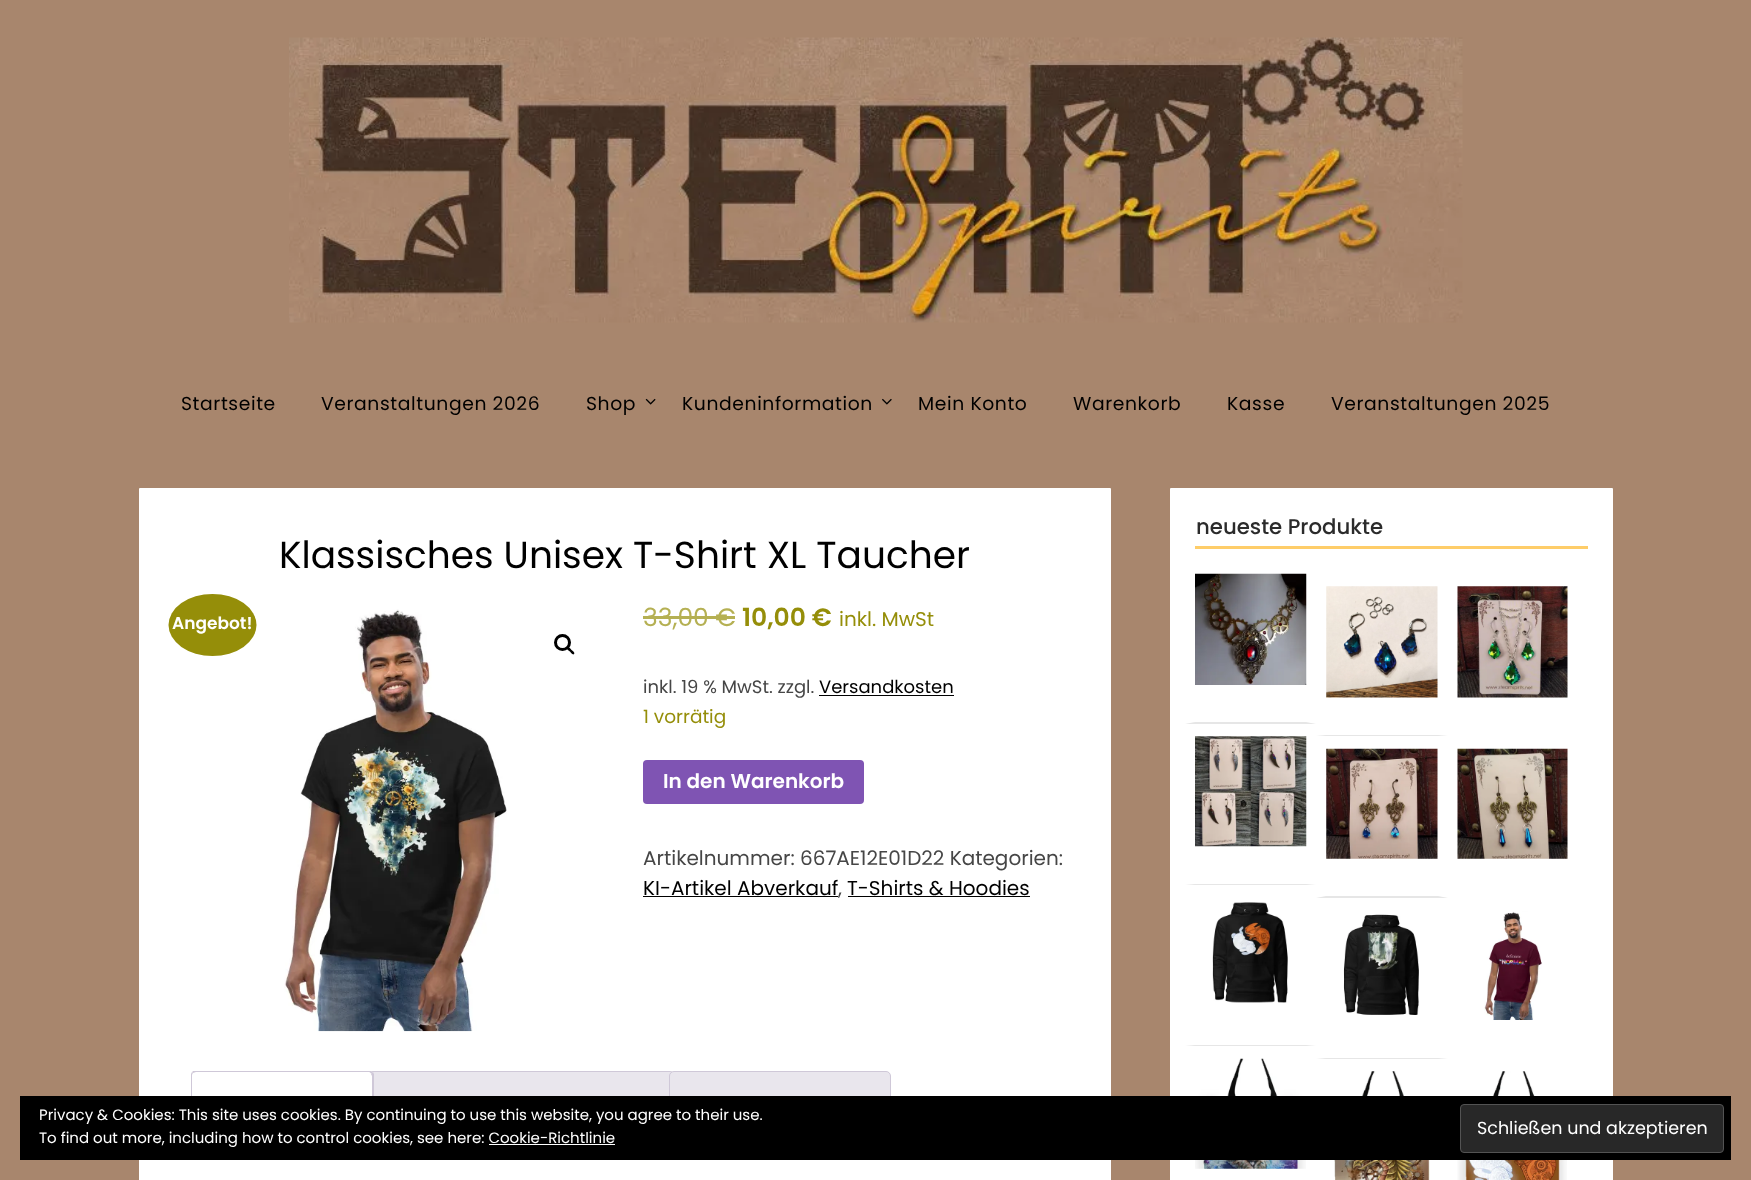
<svg xmlns="http://www.w3.org/2000/svg" width="1751" height="1180" viewBox="0 0 1751 1180">
  <style>
    .t1 { font: 18.75px Poppins; letter-spacing: 0.6px; fill: #000; }
    .t2 { font: 500 21.25px Poppins; fill: #2b2b2b; }
    .t3 { font: 37.5px Poppins; fill: #000; }
    .t4 { font: 600 17px Poppins; fill: #fff; }
    .t5 { font: 25px Poppins; fill: #b5b053; }
    .t6 { font: 600 25px Poppins; fill: #958e09; }
    .t7 { font: 20px Poppins; fill: #958e09; }
    .t8 { font: 18px Poppins; fill: #464646; }
    .t9 { font: 18px Poppins; fill: #000; }
    .t10 { font: 18.5px Poppins; fill: #958e09; }
    .t11 { font: 600 20px Poppins; fill: #fff; }
    .t12 { font: 20px Poppins; fill: #464646; }
    .t13 { font: 20px Poppins; fill: #000; }
    .t14 { font: 15px Poppins; fill: #fff; }
    .t15 { font: 17.5px Poppins; fill: #fff; }
  </style>
  <defs>
    <clipPath id="clip1"><rect x="178" y="1071" width="895" height="53"/></clipPath>
  </defs>
  <rect width="100%" height="100%" fill="#a8866d"/>
  <image x="289" y="37" width="1174" height="286" href="images/1.png"/>
  <text x="181" y="410" class="t1">Startseite</text>
  <text x="321" y="410" class="t1">Veranstaltungen 2026</text>
  <text x="586" y="410" class="t1">Shop</text>
  <image x="645" y="398" width="11" height="7" href="images/2.png"/>
  <text x="682" y="410" class="t1">Kundeninformation</text>
  <image x="882" y="398" width="10" height="7" href="images/3.png"/>
  <text x="918" y="410" class="t1">Mein Konto</text>
  <text x="1073" y="410" class="t1">Warenkorb</text>
  <text x="1227" y="410" class="t1">Kasse</text>
  <text x="1331" y="410" class="t1">Veranstaltungen 2025</text>
  <rect x="1170" y="488" width="443" height="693" rx="1" fill="#fff"/>
  <rect x="1195" y="546" width="393" height="3" fill="#fecd69"/>
  <text x="1196" y="534" class="t2">neueste Produkte</text>
  <path d="M1316 724H1185L1195 722H1306Z" fill="#e6e6e6"/>
  <image x="1195" y="573" width="112" height="112" href="images/4.png"/>
  <path d="M1448 736H1316L1326 735H1438Z" fill="#e6e6e6"/>
  <image x="1326" y="586" width="112" height="112" href="images/5.png"/>
  <image x="1457" y="586" width="111" height="112" href="images/6.png"/>
  <path d="M1316 885H1185L1195 884H1306Z" fill="#e6e6e6"/>
  <image x="1195" y="736" width="112" height="111" href="images/7.png"/>
  <path d="M1448 898H1316L1326 896H1438Z" fill="#e6e6e6"/>
  <image x="1326" y="748" width="112" height="111" href="images/8.png"/>
  <image x="1457" y="748" width="111" height="111" href="images/9.png"/>
  <path d="M1316 1046H1185L1195 1045H1306Z" fill="#e6e6e6"/>
  <image x="1212" y="902" width="76" height="101" href="images/10.png"/>
  <path d="M1448 1059H1316L1326 1058H1438Z" fill="#e6e6e6"/>
  <image x="1343" y="914" width="76" height="101" href="images/11.png"/>
  <image x="1484" y="911" width="58" height="109" href="images/12.png"/>
  <image x="1195" y="1058" width="111" height="111" href="images/13.png"/>
  <image x="1334" y="1071" width="96" height="109" href="images/14.png"/>
  <image x="1457" y="1071" width="110" height="109" href="images/15.png"/>
  <rect x="139" y="488" width="972" height="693" rx="1" fill="#fff"/>
  <text x="279" y="568" class="t3">Klassisches Unisex T-Shirt XL Taucher</text>
  <ellipse cx="212.5" cy="625" rx="44" ry="31" fill="#958e09"/>
  <text x="172" y="629" class="t4">Angebot!</text>
  <image x="284" y="609" width="223" height="423" href="images/16.png"/>
  <circle cx="562.5" cy="642.5" r="7" fill="none" stroke="#000" stroke-width="3"/>
  <path d="M567 647C568.5 645.5 571 649 571.5 650C572.5 650.5 575.5 653 574 654C573 655.5 570.5 652.5 570 651.5C569 651 565.5 648.5 567 647Z" fill="#000"/>
  <text x="643" y="626" class="t5">33,00 €</text>
  <rect x="643" y="616" width="92" height="3" fill="#b5b053"/>
  <text x="742" y="626" class="t6">10,00 €</text>
  <text x="839" y="626" class="t7">inkl. MwSt</text>
  <text x="643" y="693" class="t8">inkl. 19 % MwSt. zzgl.</text>
  <text x="819" y="693" class="t9">Versandkosten</text>
  <rect x="819" y="695" width="135" height="1" fill="#000"/>
  <text x="643" y="723" class="t10">1 vorrätig</text>
  <rect x="643" y="760" width="221" height="44" rx="4" fill="#7f54b3"/>
  <text x="663" y="788" class="t11">In den Warenkorb</text>
  <text x="643" y="865" class="t12">Artikelnummer: 667AE12E01D22 Kategorien:</text>
  <text x="643" y="895" class="t13">KI-Artikel Abverkauf</text>
  <text x="838" y="895" class="t12">,</text>
  <rect x="643" y="896" width="195" height="1" fill="#000"/>
  <rect x="848" y="896" width="182" height="1" fill="#000"/>
  <text x="847" y="895" class="t13">T-Shirts &amp; Hoodies</text>
  <path d="M373 1071.5H670C672.5 1071.5 674.5 1073.5 674.5 1076V1123.5H368.5V1076C368.5 1073.5 370.5 1071.5 373 1071.5Z" fill="#e9e6ed" stroke="#cfc8d8"/>
  <path d="M196 1071H369C372 1071 374 1073 374 1076V1124H191V1076C191 1073 193 1071 196 1071Z" fill="#fff"/>
  <g clip-path="url(#clip1)">
    <path d="M196 1072L193 1073L192 1072C200 1065 213 1071 224 1071H371L373 1072L371 1074C371 1073 370 1072 369 1072Z" fill="#cfc8d8"/>
  </g>
  <path d="M373 1072L374 1074V1124L372 1122V1076L371 1074Z" fill="#cfc8d8"/>
  <path d="M191 1124V1074L192 1072L193 1073C192 1074 192 1075 192 1076V1122H193Z" fill="#cfc8d8"/>
  <path d="M674 1071.5H886C888.5 1071.5 890.5 1073.5 890.5 1076V1123.5H669.5V1076C669.5 1073.5 671.5 1071.5 674 1071.5Z" fill="#e9e6ed" stroke="#cfc8d8"/>
  <rect x="20" y="1096" width="1711" height="64" fill="#000"/>
  <text x="39" y="1120" class="t14">Privacy &amp; Cookies: This site uses cookies. By continuing to use this website, you agree to their use.</text>
  <text x="39" y="1143" class="t14">To find out more, including how to control cookies, see here: Cookie-Richtlinie</text>
  <rect x="1460.5" y="1104.5" width="263" height="48" rx="3.5" fill="#282828" stroke="#535353"/>
  <text x="1477" y="1134" class="t15">Schließen und akzeptieren</text>
  <rect x="489" y="1144" width="126" height="1" fill="#fff"/>
</svg>
